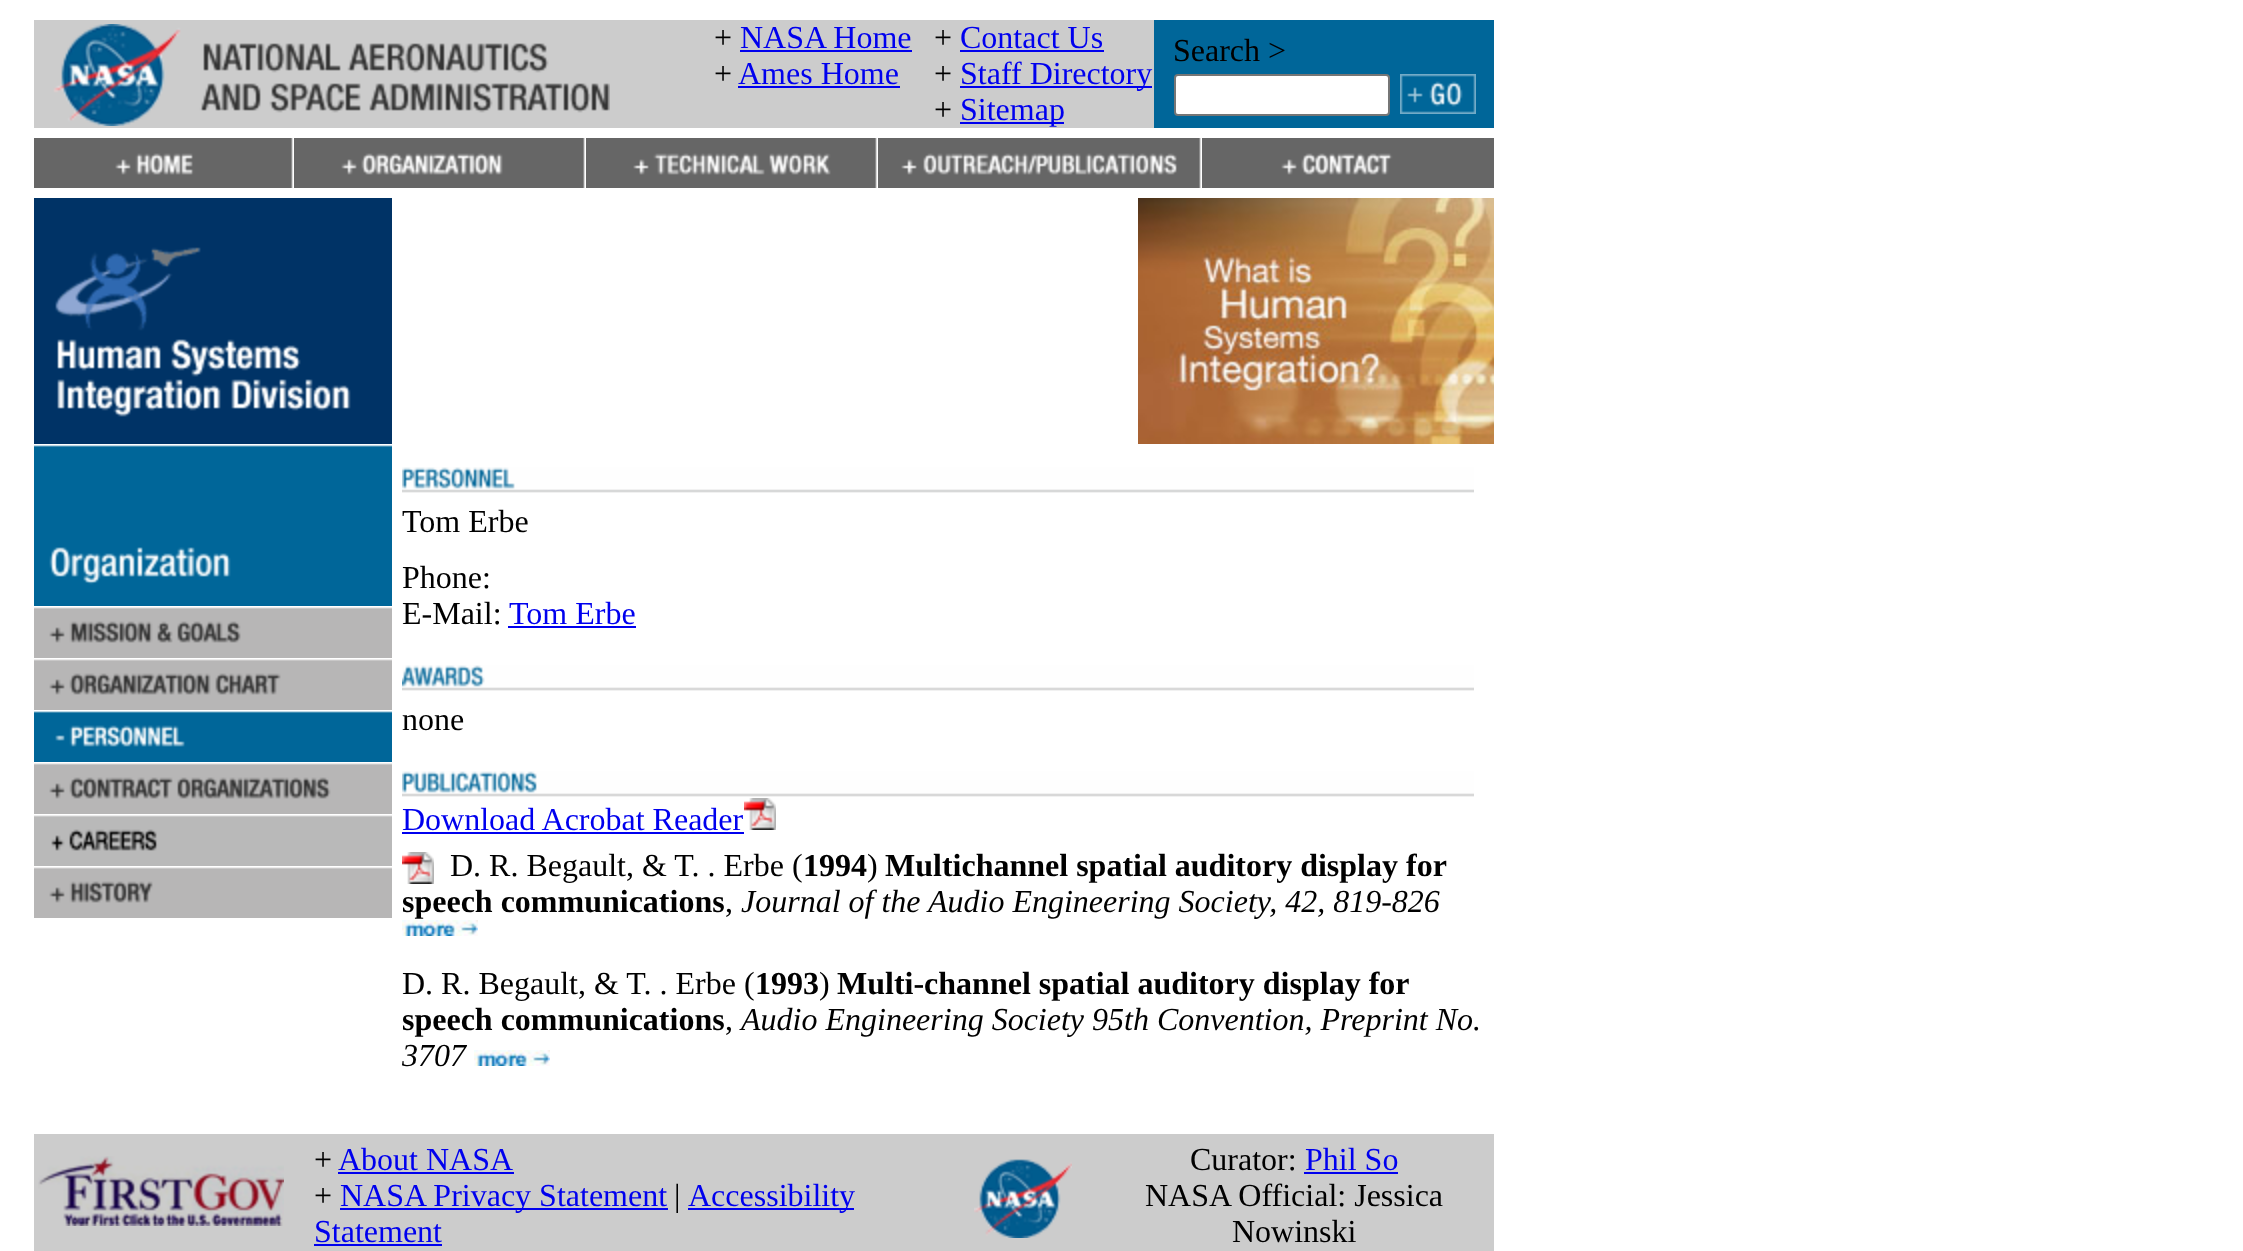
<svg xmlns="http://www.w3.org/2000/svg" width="2243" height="1251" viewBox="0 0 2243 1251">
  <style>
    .t1 { font: 32px Liberation Serif; fill: #000; }
    .t2 { font: 32px Liberation Serif; fill: #00e; }
    .t3 { font: bold 32px Liberation Serif; fill: #000; }
    .t4 { font: italic 32px Liberation Serif; fill: #000; }
  </style>
  <rect width="100%" height="100%" fill="#fff"/>
  <rect x="34" y="20" width="1120" height="108" fill="#ccc"/>
  <image x="53" y="24" width="557" height="102" href="images/1.png"/>
  <text x="714" y="48" class="t1">+</text>
  <text x="740" y="48" class="t2">NASA Home</text>
  <rect x="740" y="50" width="172" height="2" fill="#00e"/>
  <text x="714" y="84" class="t1">+</text>
  <text x="738" y="84" class="t2">Ames Home</text>
  <rect x="738" y="86" width="162" height="2" fill="#00e"/>
  <text x="934" y="48" class="t1">+</text>
  <text x="960" y="48" class="t2">Contact Us</text>
  <rect x="960" y="50" width="144" height="2" fill="#00e"/>
  <text x="934" y="84" class="t1">+</text>
  <rect x="960" y="86" width="192" height="2" fill="#00e"/>
  <text x="960" y="84" class="t2">Staff Directory</text>
  <text x="934" y="120" class="t1">+</text>
  <rect x="960" y="122" width="104" height="2" fill="#00e"/>
  <text x="960" y="120" class="t2">Sitemap</text>
  <rect x="1154" y="20" width="340" height="108" fill="#069"/>
  <text x="1173" y="61" class="t1">Search &gt;</text>
  <rect x="1175" y="75" width="214" height="40" rx="3" fill="#fff" stroke="#767676" stroke-width="2"/>
  <image x="1400" y="74" width="76" height="40" href="images/2.png"/>
  <image x="34" y="138" width="259" height="50" href="images/3.png"/>
  <image x="294" y="138" width="291" height="50" href="images/4.png"/>
  <image x="586" y="138" width="291" height="50" href="images/5.png"/>
  <image x="878" y="138" width="323" height="50" href="images/6.png"/>
  <image x="1202" y="138" width="292" height="50" href="images/7.png"/>
  <image x="34" y="198" width="358" height="246" href="images/8.png"/>
  <image x="34" y="445" width="358" height="161" href="images/9.png"/>
  <image x="34" y="607" width="358" height="51" href="images/10.png"/>
  <image x="34" y="659" width="358" height="51" href="images/11.png"/>
  <image x="34" y="711" width="358" height="51" href="images/12.png"/>
  <image x="34" y="763" width="358" height="51" href="images/13.png"/>
  <image x="34" y="815" width="358" height="51" href="images/14.png"/>
  <image x="34" y="867" width="358" height="51" href="images/15.png"/>
  <image x="1138" y="198" width="356" height="246" href="images/16.png"/>
  <image x="402" y="467" width="1072" height="26" href="images/17.png"/>
  <text x="402" y="532" class="t1">Tom Erbe</text>
  <text x="402" y="588" class="t1">Phone:</text>
  <text x="402" y="624" class="t1">E-Mail:</text>
  <text x="509" y="624" class="t2">Tom Erbe</text>
  <rect x="508" y="626" width="128" height="2" fill="#00e"/>
  <image x="402" y="665" width="1072" height="26" href="images/18.png"/>
  <text x="402" y="730" class="t1">none</text>
  <image x="402" y="771" width="1072" height="26" href="images/19.png"/>
  <text x="402" y="830" class="t2">Download Acrobat Reader</text>
  <rect x="402" y="832" width="342" height="2" fill="#00e"/>
  <image x="744" y="798" width="32" height="32" href="images/20.png"/>
  <image x="402" y="852" width="32" height="32" href="images/20.png"/>
  <text x="450" y="876" class="t1">D. R. Begault, &amp; T. . Erbe (</text>
  <text x="803" y="876" class="t3">1994</text>
  <text x="867" y="876" class="t1">)</text>
  <text x="885" y="876" class="t3">Multichannel spatial auditory display for</text>
  <text x="402" y="912" class="t3">speech communications</text>
  <text x="725" y="912" class="t1">,</text>
  <text x="741" y="912" class="t4">Journal of the Audio Engineering Society, 42, 819-826</text>
  <image x="402" y="920" width="76" height="16" href="images/21.png"/>
  <text x="402" y="994" class="t1">D. R. Begault, &amp; T. . Erbe (</text>
  <text x="755" y="994" class="t3">1993</text>
  <text x="819" y="994" class="t1">)</text>
  <text x="837" y="994" class="t3">Multi-channel spatial auditory display for</text>
  <text x="402" y="1030" class="t3">speech communications</text>
  <text x="725" y="1030" class="t1">,</text>
  <text x="741" y="1030" class="t4">Audio Engineering Society 95th Convention, Preprint No.</text>
  <text x="402" y="1066" class="t4">3707</text>
  <image x="474" y="1050" width="76" height="16" href="images/21.png"/>
  <rect x="34" y="1134" width="1460" height="117" fill="#ccc"/>
  <image x="38" y="1156" width="246" height="70" href="images/22.png"/>
  <text x="314" y="1170" class="t1">+</text>
  <text x="338" y="1170" class="t2">About NASA</text>
  <rect x="338" y="1172" width="176" height="2" fill="#00e"/>
  <text x="314" y="1206" class="t1">+</text>
  <rect x="340" y="1208" width="328" height="2" fill="#00e"/>
  <text x="340" y="1206" class="t2">NASA Privacy Statement</text>
  <text x="674" y="1206" class="t1">|</text>
  <rect x="688" y="1208" width="166" height="2" fill="#00e"/>
  <text x="688" y="1206" class="t2">Accessibility</text>
  <text x="314" y="1242" class="t2">Statement</text>
  <rect x="314" y="1244" width="128" height="2" fill="#00e"/>
  <image x="974" y="1159" width="98" height="79" href="images/23.png"/>
  <text x="1190" y="1170" class="t1">Curator:</text>
  <text x="1305" y="1170" class="t2">Phil So</text>
  <rect x="1304" y="1172" width="94" height="2" fill="#00e"/>
  <text x="1145" y="1206" class="t1">NASA Official: Jessica</text>
  <text x="1232" y="1242" class="t1">Nowinski</text>
</svg>
